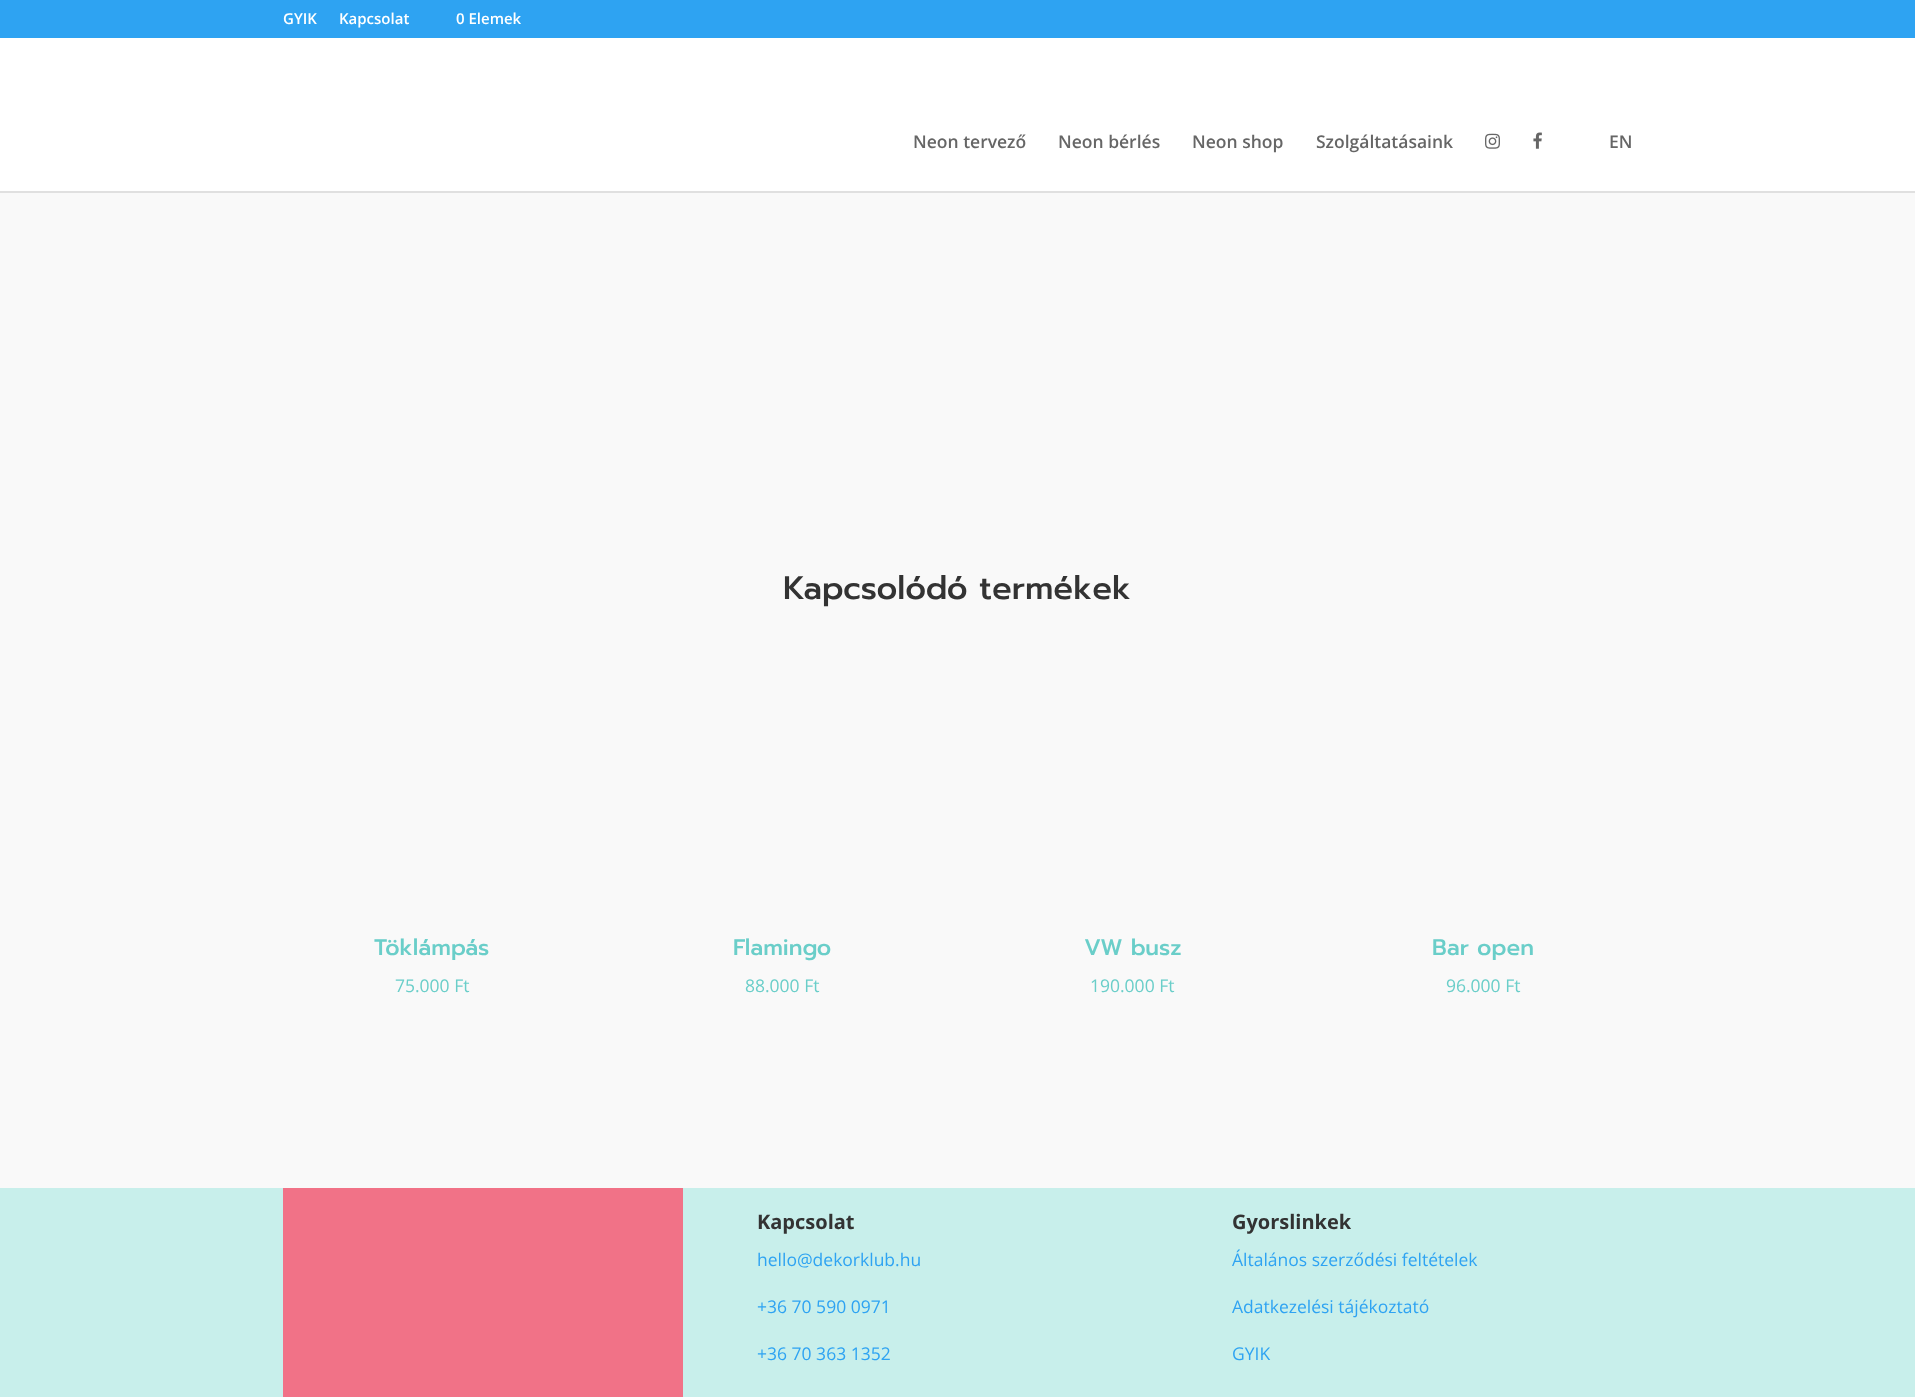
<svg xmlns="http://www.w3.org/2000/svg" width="1915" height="1397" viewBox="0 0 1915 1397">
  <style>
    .t1 { font: 600 15px Open Sans; fill: #fff; }
    .t2 { font: 600 17.5px Open Sans; fill: #666; }
    .t3 { font: 500 32.5px Prompt; fill: #333; }
    .t4 { font: 500 22.5px Prompt; fill: #6acec9; }
    .t5 { font: 17.5px Open Sans; fill: #6acec9; }
    .t6 { font: bold 20px Open Sans; fill: #333; }
    .t7 { font: 17.5px Open Sans; fill: #2ea3f2; }
  </style>
  <rect width="100%" height="100%" fill="#f9f9f9"/>
  <rect x="0" y="0" width="1915" height="38" fill="#2ea3f2"/>
  <text x="283" y="24" class="t1">GYIK</text>
  <text x="339" y="24" class="t1">Kapcsolat</text>
  <text x="456" y="24" class="t1">0 Elemek</text>
  <rect x="0" y="191" width="1915" height="2" fill="#e0e0e0"/>
  <rect x="0" y="38" width="1915" height="153" fill="#fff"/>
  <text x="913" y="148" class="t2">Neon tervező</text>
  <text x="1058" y="148" class="t2">Neon bérlés</text>
  <text x="1192" y="148" class="t2">Neon shop</text>
  <text x="1316" y="148" class="t2">Szolgáltatásaink</text>
  <image x="1485" y="133" width="15" height="16" href="images/1.png"/>
  <image x="1533" y="132" width="9" height="17" href="images/2.png"/>
  <text x="1609" y="148" class="t2">EN</text>
  <text x="783" y="599" class="t3">Kapcsolódó termékek</text>
  <text x="374" y="955" class="t4">Töklámpás</text>
  <text x="395" y="992" class="t5">75.000 Ft</text>
  <text x="733" y="955" class="t4">Flamingo</text>
  <text x="745" y="992" class="t5">88.000 Ft</text>
  <text x="1084" y="955" class="t4">VW busz</text>
  <text x="1090" y="992" class="t5">190.000 Ft</text>
  <text x="1432" y="955" class="t4">Bar open</text>
  <text x="1446" y="992" class="t5">96.000 Ft</text>
  <rect x="0" y="1188" width="1915" height="209" fill="#c8efeb"/>
  <rect x="283" y="1188" width="400" height="209" fill="#f17287"/>
  <text x="757" y="1229" class="t6">Kapcsolat</text>
  <text x="757" y="1266" class="t7">hello@dekorklub.hu</text>
  <text x="757" y="1313" class="t7">+36 70 590 0971</text>
  <text x="757" y="1360" class="t7">+36 70 363 1352</text>
  <text x="1232" y="1229" class="t6">Gyorslinkek</text>
  <text x="1232" y="1266" class="t7">Általános szerződési feltételek</text>
  <text x="1232" y="1313" class="t7">Adatkezelési tájékoztató</text>
  <text x="1232" y="1360" class="t7">GYIK</text>
</svg>
